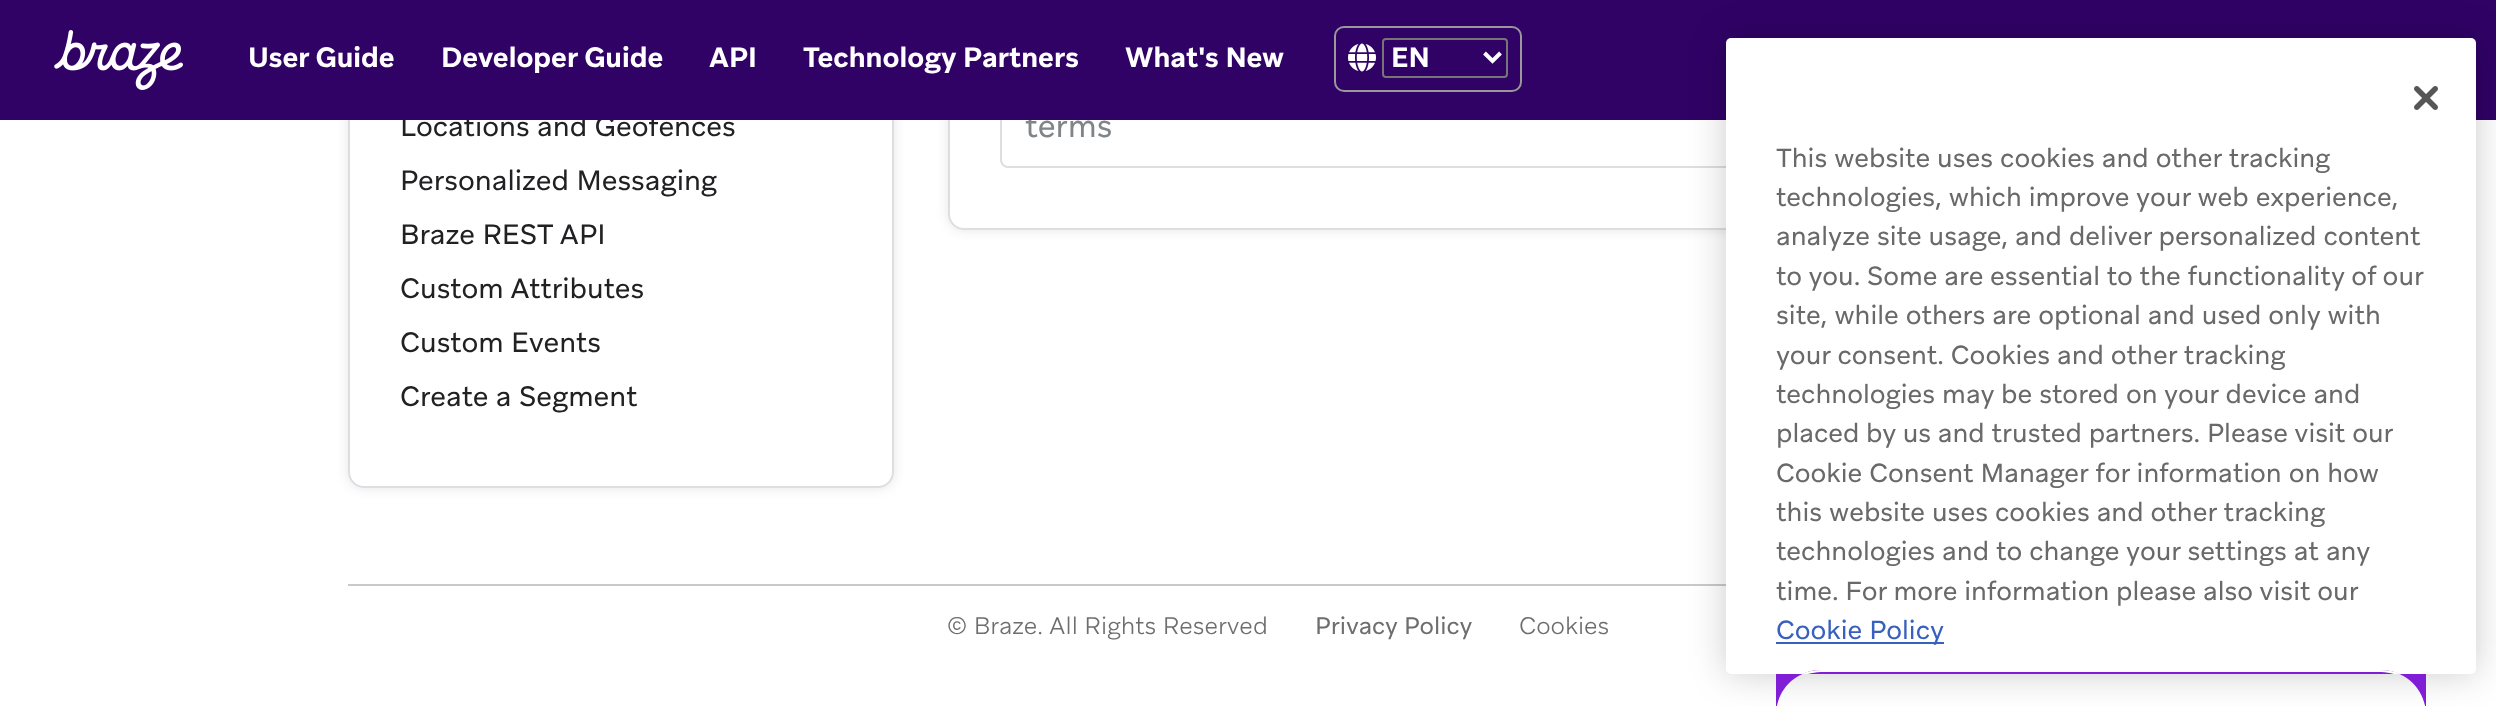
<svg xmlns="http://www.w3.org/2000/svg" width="2496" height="706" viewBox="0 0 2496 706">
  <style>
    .t1 { font: 28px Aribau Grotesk; fill: #212123; }
    .t2 { font: 32px Aribau Grotesk; fill: #808589; }
    .t3 { font: bold 28px Aribau Grotesk; fill: #fff; }
    .t4 { font: 300 24px Aribau Grotesk; fill: #6e6e70; }
    .t5 { font: 24px Aribau Grotesk; fill: #6e6e70; }
    .t6 { font: 26.25px Aribau Grotesk; fill: #696969; }
    .t7 { font: 26.25px Aribau Grotesk; fill: #3860be; }
  </style>
  <defs>
    <clipPath id="clip1"><path d="M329 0H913V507H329ZM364-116H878C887-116 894-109 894-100V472C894 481 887 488 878 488H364C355 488 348 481 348 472V-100C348-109 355-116 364-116Z" clip-rule="evenodd"/></clipPath>
    <clipPath id="clip2"><path d="M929 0H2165V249H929ZM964-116H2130C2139-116 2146-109 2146-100V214C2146 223 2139 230 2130 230H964C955 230 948 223 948 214V-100C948-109 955-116 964-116Z" clip-rule="evenodd"/></clipPath>
  </defs>
  <rect width="100%" height="100%" fill="#fff"/>
  <g clip-path="url(#clip1)">
    <rect x="348" y="-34" width="546" height="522" rx="16" fill="#2020241f" filter="blur(6px)"/>
  </g>
  <rect x="349" y="-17" width="544" height="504" rx="15" fill="none" stroke="#dddde2" stroke-width="2"/>
  <text x="400" y="136" class="t1">Locations and Geofences</text>
  <g clip-path="url(#clip2)">
    <rect x="948" y="-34" width="1198" height="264" rx="16" fill="#2020241f" filter="blur(6px)"/>
  </g>
  <rect x="949" y="-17" width="1196" height="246" rx="15" fill="none" stroke="#dddde2" stroke-width="2"/>
  <rect x="1001" y="85" width="1092" height="82" rx="7" fill="none" stroke="#dddde2" stroke-width="2"/>
  <path d="M1010 86H2092V166H1010C1005.5 166 1002 162.5 1002 158V94C1002 89.5 1005.5 86 1010 86Z" fill="#ffffffb3"/>
  <text x="1025" y="137" class="t2">terms</text>
  <rect x="0" y="0" width="2496" height="120" fill="#300266"/>
  <image x="54" y="30" width="129" height="60" href="images/1.png"/>
  <text x="248" y="67" class="t3">User Guide</text>
  <text x="441" y="67" class="t3">Developer Guide</text>
  <text x="709" y="67" class="t3">API</text>
  <text x="803" y="67" class="t3">Technology Partners</text>
  <text x="1125" y="67" class="t3">What's New</text>
  <rect x="1335" y="27" width="186" height="64" rx="9" fill="none" stroke="#99999b" stroke-width="2"/>
  <image x="1348" y="43" width="28" height="29" href="images/2.png"/>
  <rect x="1383" y="39" width="124" height="38" rx="3" fill="none" stroke="#767676" stroke-width="2"/>
  <path d="M1484.5 53L1492.5 61L1500.5 53" fill="none" stroke="#fff" stroke-width="4"/>
  <text x="1391" y="67" class="t3">EN</text>
  <text x="400" y="190" class="t1">Personalized Messaging</text>
  <text x="400" y="244" class="t1">Braze REST API</text>
  <text x="400" y="298" class="t1">Custom Attributes</text>
  <text x="400" y="352" class="t1">Custom Events</text>
  <text x="400" y="406" class="t1">Create a Segment</text>
  <rect x="348" y="584" width="1378" height="2" fill="#c9c9c9"/>
  <text x="947" y="634" class="t4">© Braze. All Rights Reserved</text>
  <text x="1315" y="634" class="t5">Privacy Policy</text>
  <text x="1519" y="634" class="t4">Cookies</text>
  <rect x="1726" y="38" width="750" height="636" rx="5" fill="#00000033" filter="blur(18px)"/>
  <rect x="1726" y="38" width="750" height="636" rx="5" fill="#fff"/>
  <image x="2414" y="86" width="24" height="24" href="images/3.png"/>
  <text x="1776" y="167" class="t6">This website uses cookies and other tracking</text>
  <text x="1776" y="206" class="t6">technologies, which improve your web experience,</text>
  <text x="1776" y="245" class="t6">analyze site usage, and deliver personalized content</text>
  <text x="1776" y="285" word-spacing="-0.25" class="t6">to you. Some are essential to the functionality of our</text>
  <text x="1776" y="324" class="t6">site, while others are optional and used only with</text>
  <text x="1776" y="364" class="t6">your consent. Cookies and other tracking</text>
  <text x="1776" y="403" class="t6">technologies may be stored on your device and</text>
  <text x="1776" y="442" word-spacing="-0.25" class="t6">placed by us and trusted partners. Please visit our</text>
  <text x="1776" y="482" class="t6">Cookie Consent Manager for information on how</text>
  <text x="1776" y="521" class="t6">this website uses cookies and other tracking</text>
  <text x="1776" y="560" class="t6">technologies and to change your settings at any</text>
  <text x="1776" y="600" word-spacing="-0.25" class="t6">time. For more information please also visit our</text>
  <rect x="1776" y="642" width="168" height="2" fill="#3860be"/>
  <text x="1776" y="639" class="t7">Cookie Policy</text>
  <path d="M1821 670H2381C2406 670 2426 690 2426 715V674H1776V715C1776 690 1796 670 1821 670Z" fill="#801ed7"/>
  <path d="M1821 670C1814 670 1808 671 1802 674H1808C1812 673 1816 672 1821 672H2381C2386 672 2390 673 2394 674H2400C2394 671 2388 670 2381 670Z" fill="#fff"/>
</svg>
